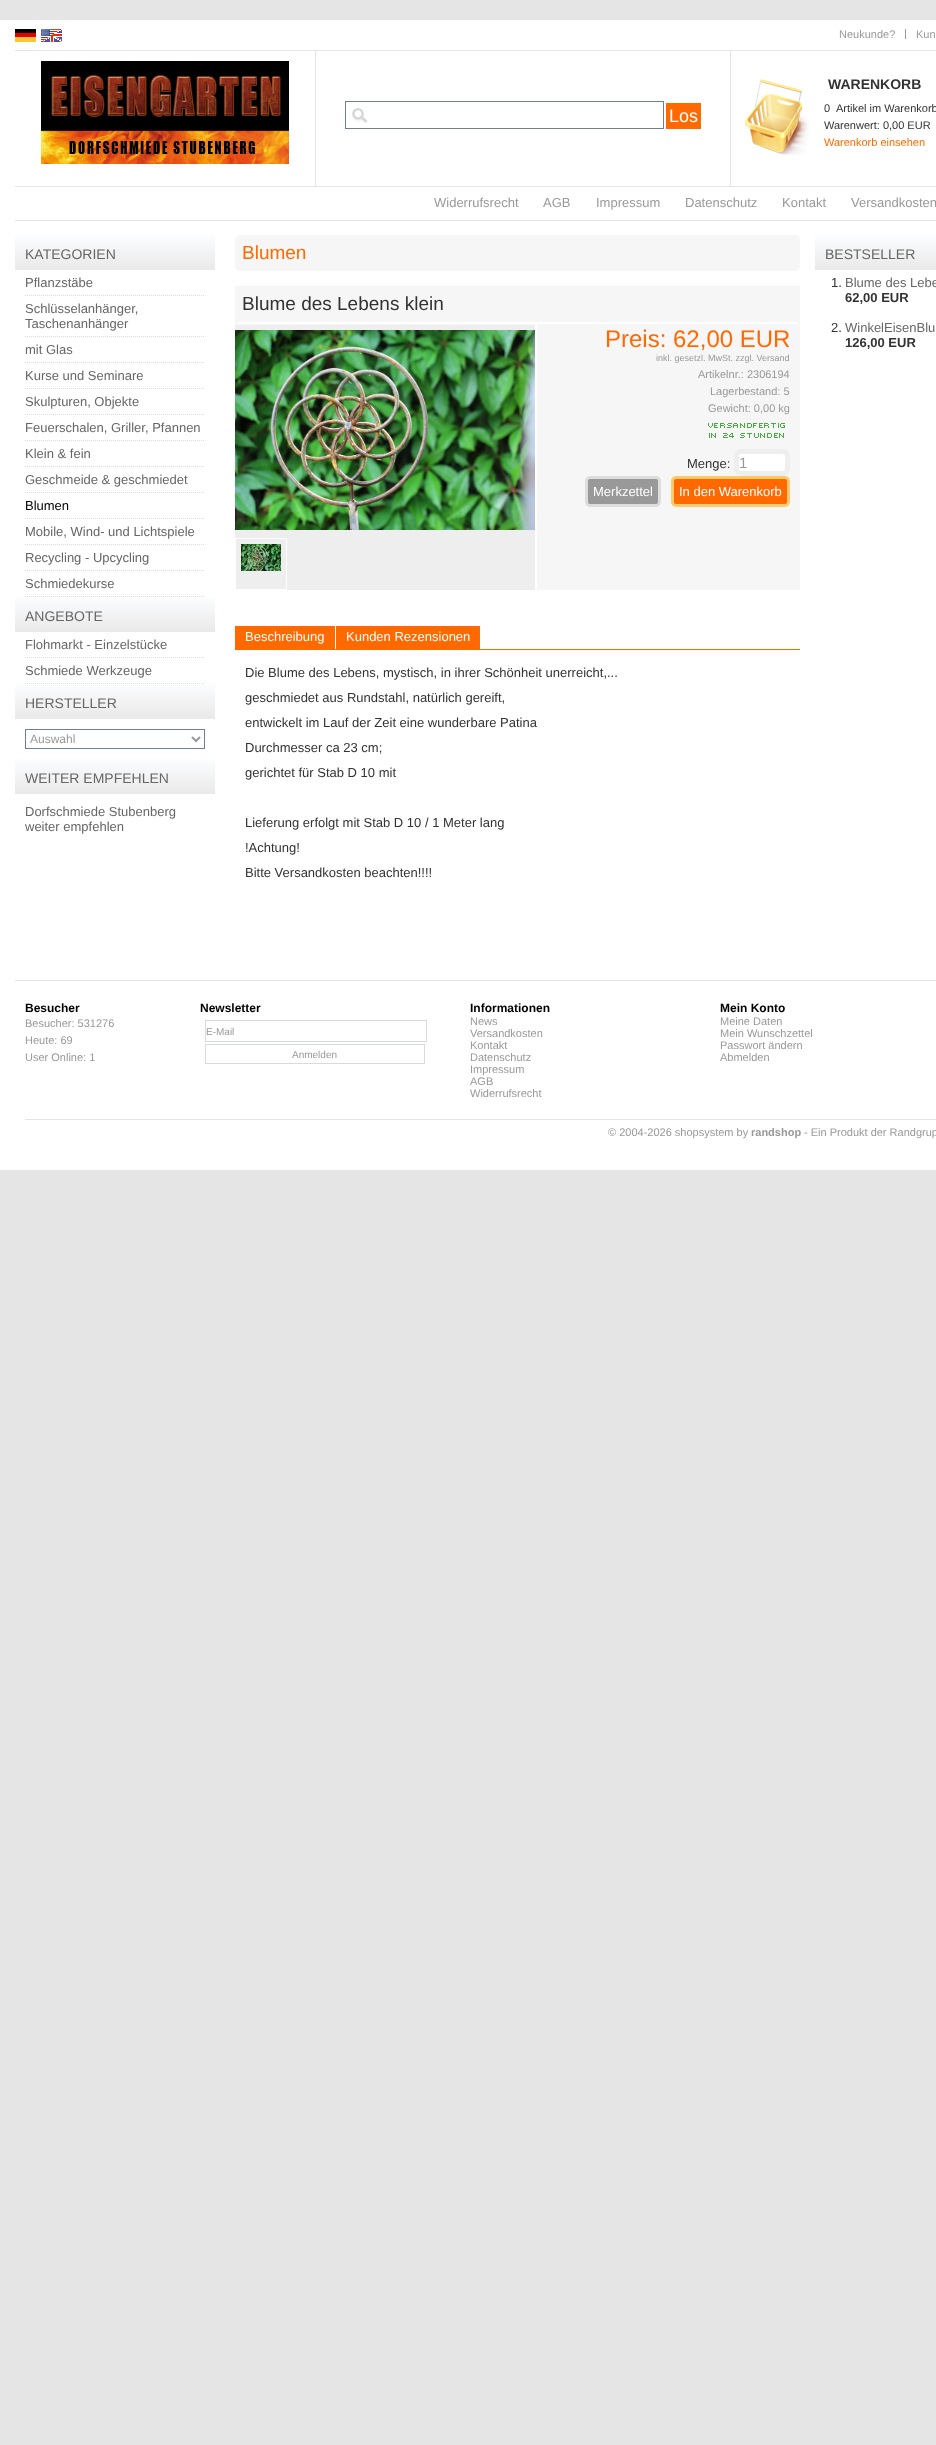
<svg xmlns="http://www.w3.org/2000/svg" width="936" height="2445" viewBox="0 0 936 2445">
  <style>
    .t1 { font: 11px Liberation Sans; fill: #999; }
    .t2 { font: 18px Liberation Sans; fill: #fff; }
    .t3 { font: bold 14px Liberation Sans; fill: #333; }
    .t4 { font: 11px Liberation Sans; fill: #333; }
    .t5 { font: 11px Liberation Sans; fill: #ff6900; }
    .t6 { font: 13px Liberation Sans; fill: #999; }
    .t7 { font: 14px Liberation Sans; fill: #666; }
    .t8 { font: 13px Liberation Sans; fill: #666; }
    .t9 { font: 13px Liberation Sans; fill: #000; }
    .t10 { font: 12px Liberation Sans; fill: #999; }
    .t11 { font: 19px Liberation Sans; fill: #ff6900; }
    .t12 { font: 19px Liberation Sans; fill: #333; }
    .t13 { font: 24px Liberation Sans; fill: #ff6900; }
    .t14 { font: 9px Liberation Sans; fill: #999; }
    .t15 { font: 13px Liberation Sans; fill: #333; }
    .t16 { font: 15px Liberation Sans; fill: #999; }
    .t17 { font: 13px Liberation Sans; fill: #fff; }
    .t18 { font: bold 13px Liberation Sans; fill: #333; }
    .t19 { font: bold 12px Liberation Sans; fill: #000; }
    .t20 { font: 10px Liberation Sans; fill: #999; }
    .t21 { font: bold 11px Liberation Sans; fill: #999; }
  </style>
  <defs>
    <linearGradient id="g1" gradientUnits="userSpaceOnUse" x1="15" y1="235" x2="15" y2="270"><stop offset="0" stop-color="#fcfdff"/><stop offset="1" stop-color="#e9e9e9"/></linearGradient>
    <linearGradient id="g2" gradientUnits="userSpaceOnUse" x1="15" y1="597" x2="15" y2="632"><stop offset="0" stop-color="#fcfdff"/><stop offset="1" stop-color="#e9e9e9"/></linearGradient>
    <linearGradient id="g3" gradientUnits="userSpaceOnUse" x1="15" y1="684" x2="15" y2="719"><stop offset="0" stop-color="#fcfdff"/><stop offset="1" stop-color="#e9e9e9"/></linearGradient>
    <linearGradient id="g4" gradientUnits="userSpaceOnUse" x1="15" y1="759" x2="15" y2="794"><stop offset="0" stop-color="#fcfdff"/><stop offset="1" stop-color="#e9e9e9"/></linearGradient>
    <linearGradient id="g5" gradientUnits="userSpaceOnUse" x1="815" y1="235" x2="815" y2="270"><stop offset="0" stop-color="#fcfdff"/><stop offset="1" stop-color="#e9e9e9"/></linearGradient>
  </defs>
  <rect width="100%" height="100%" fill="#e5e5e5"/>
  <rect x="0" y="20" width="936" height="1150" fill="#fff"/>
  <image x="15" y="29" width="21" height="13" href="images/1.png"/>
  <image x="41" y="29" width="21" height="13" href="images/2.png"/>
  <rect x="905" y="29" width="1" height="10" fill="#999"/>
  <text x="839" y="38" class="t1">Neukunde?</text>
  <text x="916" y="38" class="t1">Kun</text>
  <rect x="15" y="50" width="301" height="1" fill="#e5e5e5"/>
  <rect x="315" y="50" width="1" height="137" fill="#e5e5e5"/>
  <rect x="15" y="186" width="301" height="1" fill="#e5e5e5"/>
  <image x="41" y="61" width="248" height="103" href="images/3.png"/>
  <rect x="730" y="50" width="206" height="1" fill="#e5e5e5"/>
  <rect x="315" y="50" width="416" height="1" fill="#e5e5e5"/>
  <rect x="730" y="186" width="206" height="1" fill="#e5e5e5"/>
  <rect x="730" y="50" width="1" height="137" fill="#e5e5e5"/>
  <rect x="315" y="186" width="416" height="1" fill="#e5e5e5"/>
  <image x="352" y="108" width="15" height="15" href="images/4.png"/>
  <rect x="345.5" y="101.5" width="318" height="27" fill="none" stroke="#6d808f"/>
  <rect x="666" y="103" width="35" height="26" fill="#ff6900"/>
  <text x="669" y="122" class="t2">Los</text>
  <image x="745" y="79" width="64" height="76" href="images/5.png"/>
  <text x="828" y="89" class="t3">WARENKORB</text>
  <text x="824" y="112" class="t4">0</text>
  <text x="836" y="112" class="t4">Artikel im Warenkorb</text>
  <text x="824" y="129" class="t4">Warenwert: 0,00 EUR</text>
  <text x="824" y="146" class="t5">Warenkorb einsehen</text>
  <rect x="15" y="220" width="921" height="1" fill="#e5e5e5"/>
  <text x="434" y="207" class="t6">Widerrufsrecht</text>
  <text x="543" y="207" class="t6">AGB</text>
  <text x="596" y="207" class="t6">Impressum</text>
  <text x="685" y="207" class="t6">Datenschutz</text>
  <text x="782" y="207" class="t6">Kontakt</text>
  <text x="851" y="207" class="t6">Versandkosten</text>
  <rect x="15" y="235" width="200" height="35" fill="url(#g1)"/>
  <text x="25" y="259" class="t7">KATEGORIEN</text>
  <path d="M25 295.5H205" fill="none" stroke="#ddd" stroke-dasharray="1 1"/>
  <text x="25" y="287" class="t8">Pflanzstäbe</text>
  <path d="M25 336.5H205" fill="none" stroke="#ddd" stroke-dasharray="1 1"/>
  <text x="25" y="313" class="t8">Schlüsselanhänger,</text>
  <text x="25" y="328" class="t8">Taschenanhänger</text>
  <path d="M25 362.5H205" fill="none" stroke="#ddd" stroke-dasharray="1 1"/>
  <text x="25" y="354" class="t8">mit Glas</text>
  <path d="M25 388.5H205" fill="none" stroke="#ddd" stroke-dasharray="1 1"/>
  <text x="25" y="380" class="t8">Kurse und Seminare</text>
  <path d="M25 414.5H205" fill="none" stroke="#ddd" stroke-dasharray="1 1"/>
  <text x="25" y="406" class="t8">Skulpturen, Objekte</text>
  <path d="M25 440.5H205" fill="none" stroke="#ddd" stroke-dasharray="1 1"/>
  <text x="25" y="432" class="t8">Feuerschalen, Griller, Pfannen</text>
  <path d="M25 466.5H205" fill="none" stroke="#ddd" stroke-dasharray="1 1"/>
  <text x="25" y="458" class="t8">Klein &amp; fein</text>
  <path d="M25 492.5H205" fill="none" stroke="#ddd" stroke-dasharray="1 1"/>
  <text x="25" y="484" class="t8">Geschmeide &amp; geschmiedet</text>
  <path d="M25 518.5H205" fill="none" stroke="#ddd" stroke-dasharray="1 1"/>
  <text x="25" y="510" class="t9">Blumen</text>
  <path d="M25 544.5H205" fill="none" stroke="#ddd" stroke-dasharray="1 1"/>
  <text x="25" y="536" class="t8">Mobile, Wind- und Lichtspiele</text>
  <path d="M25 570.5H205" fill="none" stroke="#ddd" stroke-dasharray="1 1"/>
  <text x="25" y="562" class="t8">Recycling - Upcycling</text>
  <path d="M25 596.5H205" fill="none" stroke="#ddd" stroke-dasharray="1 1"/>
  <text x="25" y="588" class="t8">Schmiedekurse</text>
  <rect x="15" y="597" width="200" height="35" fill="url(#g2)"/>
  <text x="25" y="621" class="t7">ANGEBOTE</text>
  <path d="M25 657.5H205" fill="none" stroke="#ddd" stroke-dasharray="1 1"/>
  <text x="25" y="649" class="t8">Flohmarkt - Einzelstücke</text>
  <path d="M25 683.5H205" fill="none" stroke="#ddd" stroke-dasharray="1 1"/>
  <text x="25" y="675" class="t8">Schmiede Werkzeuge</text>
  <rect x="15" y="684" width="200" height="35" fill="url(#g3)"/>
  <text x="25" y="708" class="t7">HERSTELLER</text>
  <rect x="25.5" y="729.5" width="179" height="19" fill="none" stroke="#6d808f"/>
  <path d="M192 737L196 741L200 737" fill="none" stroke="#999" stroke-width="2"/>
  <text x="30" y="743" class="t10">Auswahl</text>
  <rect x="15" y="759" width="200" height="35" fill="url(#g4)"/>
  <text x="25" y="783" class="t7">WEITER EMPFEHLEN</text>
  <text x="25" y="816" class="t8">Dorfschmiede Stubenberg</text>
  <text x="25" y="831" class="t8">weiter empfehlen</text>
  <rect x="235" y="235" width="565" height="36" rx="5" fill="#f6f6f6"/>
  <text x="242" y="259" class="t11">Blumen</text>
  <rect x="235" y="286" width="565" height="304" fill="#f6f6f6"/>
  <rect x="238" y="322" width="560" height="2" fill="#fff"/>
  <text x="242" y="310" class="t12">Blume des Lebens klein</text>
  <rect x="235" y="325" width="300" height="265" fill="#eee"/>
  <rect x="535" y="325" width="2" height="265" fill="#fff"/>
  <image x="235" y="330" width="300" height="200" href="images/6.png"/>
  <rect x="235.5" y="538.5" width="51" height="51" fill="none" stroke="#fff"/>
  <image x="241" y="544" width="40" height="27" href="images/7.png"/>
  <text x="605" y="347" class="t13">Preis: 62,00 EUR</text>
  <text x="656" y="361" class="t14">inkl. gesetzl. MwSt. zzgl. Versand</text>
  <text x="698" y="378" class="t1">Artikelnr.: 2306194</text>
  <text x="710" y="395" class="t1">Lagerbestand: 5</text>
  <text x="708" y="412" class="t1">Gewicht: 0,00 kg</text>
  <image x="708" y="423" width="77" height="15" href="images/8.png"/>
  <text x="687" y="468" class="t15">Menge:</text>
  <rect x="736.5" y="451.5" width="51" height="22" rx="4.5" fill="#fff" stroke="#eee" stroke-width="5"/>
  <text x="739" y="468" class="t16">1</text>
  <rect x="586.5" y="477.5" width="73" height="28" rx="3.5" fill="#999" stroke="#ddd" stroke-width="3"/>
  <text x="593" y="496" class="t17">Merkzettel</text>
  <rect x="672.5" y="477.5" width="116" height="28" rx="3.5" fill="#ff6900" stroke="#ffca6e" stroke-width="3"/>
  <text x="679" y="496" class="t17">In den Warenkorb</text>
  <rect x="235" y="649" width="565" height="1" fill="#ff6900"/>
  <rect x="235" y="626" width="100" height="23" fill="#ff6900"/>
  <text x="245" y="641" class="t17">Beschreibung</text>
  <rect x="336" y="626" width="144" height="23" fill="#ff6900"/>
  <text x="346" y="641" class="t17">Kunden Rezensionen</text>
  <text x="245" y="677" class="t15">Die Blume des Lebens, mystisch, in ihrer Schönheit unerreicht,...</text>
  <text x="245" y="702" class="t15">geschmiedet aus Rundstahl, natürlich gereift,</text>
  <text x="245" y="727" class="t15">entwickelt im Lauf der Zeit eine wunderbare Patina</text>
  <text x="245" y="752" class="t15">Durchmesser ca 23 cm;</text>
  <text x="245" y="777" class="t15">gerichtet für Stab D 10 mit</text>
  <text x="245" y="827" class="t15">Lieferung erfolgt mit Stab D 10 / 1 Meter lang</text>
  <text x="245" y="852" class="t15">!Achtung!</text>
  <text x="245" y="877" class="t15">Bitte Versandkosten beachten!!!!</text>
  <rect x="815" y="235" width="121" height="35" fill="url(#g5)"/>
  <text x="825" y="259" class="t7">BESTSELLER</text>
  <text x="831" y="287" class="t15">1.</text>
  <text x="845" y="287" class="t8">Blume des Lebe</text>
  <text x="845" y="302" class="t18">62,00 EUR</text>
  <text x="831" y="332" class="t15">2.</text>
  <text x="845" y="332" class="t8">WinkelEisenBlu</text>
  <text x="845" y="347" class="t18">126,00 EUR</text>
  <rect x="15" y="980" width="921" height="1" fill="#e5e5e5"/>
  <text x="25" y="1012" class="t19">Besucher</text>
  <text x="25" y="1027" class="t1">Besucher: 531276</text>
  <text x="25" y="1044" class="t1">Heute: 69</text>
  <text x="25" y="1061" class="t1">User Online: 1</text>
  <text x="200" y="1012" class="t19">Newsletter</text>
  <rect x="205.5" y="1020.5" width="221" height="21" fill="none" stroke="#d7dbdd"/>
  <text x="206" y="1035" class="t20">E-Mail</text>
  <rect x="205.5" y="1044.5" width="219" height="19" fill="none" stroke="#d7dbdd"/>
  <text x="292" y="1058" class="t20">Anmelden</text>
  <text x="470" y="1012" class="t19">Informationen</text>
  <text x="470" y="1025" class="t1">News</text>
  <text x="470" y="1037" class="t1">Versandkosten</text>
  <text x="470" y="1049" class="t1">Kontakt</text>
  <text x="470" y="1061" class="t1">Datenschutz</text>
  <text x="470" y="1073" class="t1">Impressum</text>
  <text x="470" y="1085" class="t1">AGB</text>
  <text x="470" y="1097" class="t1">Widerrufsrecht</text>
  <text x="720" y="1012" class="t19">Mein Konto</text>
  <text x="720" y="1025" class="t1">Meine Daten</text>
  <text x="720" y="1037" class="t1">Mein Wunschzettel</text>
  <text x="720" y="1049" class="t1">Passwort ändern</text>
  <text x="720" y="1061" class="t1">Abmelden</text>
  <rect x="25" y="1119" width="911" height="1" fill="#e5e5e5"/>
  <text x="608" y="1136" class="t1">© 2004-2026 shopsystem by</text>
  <text x="751" y="1136" class="t21">randshop</text>
  <text x="804" y="1136" class="t1">- Ein Produkt der Randgrup</text>
</svg>
